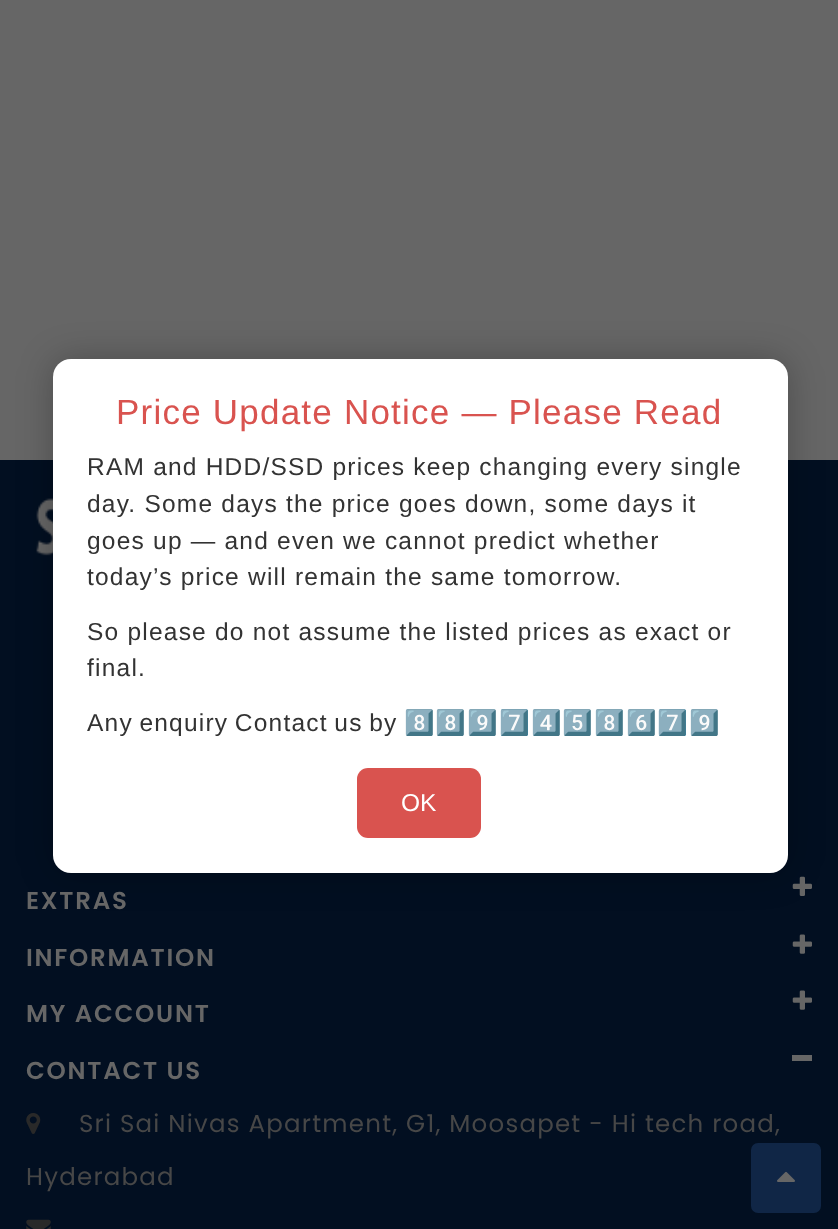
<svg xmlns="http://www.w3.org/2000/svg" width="838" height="1229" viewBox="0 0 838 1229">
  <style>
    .t1 { font: 35px Liberation Sans; letter-spacing: 1.22px; fill: #d9534f; }
    .t2 { font: 24.5px Liberation Sans; letter-spacing: 1.22px; fill: #333; }
    .t3 { font: 24.5px Noto Color Emoji; letter-spacing: 1.22px; fill: #333; }
    .t4 { font: 24.5px Liberation Sans; fill: #fff; }
    .t5 { font: 600 24.5px Poppins; letter-spacing: 1.75px; fill: #666; }
    .t6 { font: 24.5px Poppins; letter-spacing: 1.22px; fill: #474747; }
  </style>
  <rect width="100%" height="100%" fill="#666"/>
  <rect x="0" y="460" width="838" height="769" fill="#020f21"/>
  <image x="36" y="498" width="17" height="58" href="images/1.png"/>
  <image x="792" y="876" width="20" height="20" href="images/2.png"/>
  <rect x="53" y="359" width="735" height="514" rx="18" fill="#00000040" filter="blur(17.5px)"/>
  <rect x="53" y="359" width="735" height="514" rx="18" fill="#fff"/>
  <text x="116" y="424" class="t1">Price Update Notice — Please Read</text>
  <text x="87" y="475" class="t2">RAM and HDD/SSD prices keep changing every single</text>
  <text x="87" y="512" class="t2">day. Some days the price goes down, some days it</text>
  <text x="87" y="549" class="t2">goes up — and even we cannot predict whether</text>
  <text x="87" y="585" class="t2">today’s price will remain the same tomorrow.</text>
  <text x="87" y="640" class="t2">So please do not assume the listed prices as exact or</text>
  <text x="87" y="676" class="t2">final.</text>
  <text x="87" y="731" word-spacing="-1.5" class="t2">Any enquiry Contact us by</text>
  <text x="404" y="731" class="t3">8️⃣8️⃣9️⃣7️⃣4️⃣5️⃣8️⃣6️⃣7️⃣9️⃣</text>
  <rect x="357" y="768" width="124" height="70" rx="11" fill="#d9534f"/>
  <text x="401" y="811" class="t4">OK</text>
  <text x="26" y="909" class="t5">EXTRAS</text>
  <image x="792" y="934" width="20" height="20" href="images/3.png"/>
  <text x="26" y="966" class="t5">INFORMATION</text>
  <image x="792" y="990" width="20" height="20" href="images/3.png"/>
  <text x="26" y="1022" class="t5">MY ACCOUNT</text>
  <rect x="792" y="1055" width="20" height="6" fill="#666"/>
  <text x="26" y="1079" class="t5">CONTACT US</text>
  <image x="26" y="1113" width="15" height="21" href="images/4.png"/>
  <text x="79" y="1132" class="t6">Sri Sai Nivas Apartment, G1, Moosapet - Hi tech road,</text>
  <text x="26" y="1185" class="t6">Hyderabad</text>
  <image x="26" y="1219" width="25" height="10" href="images/5.png"/>
  <rect x="755.5" y="1147.5" width="61" height="61" rx="2.5" fill="#102646" stroke="#102646" stroke-width="9"/>
  <image x="777" y="1171" width="18" height="11" href="images/6.png"/>
</svg>
